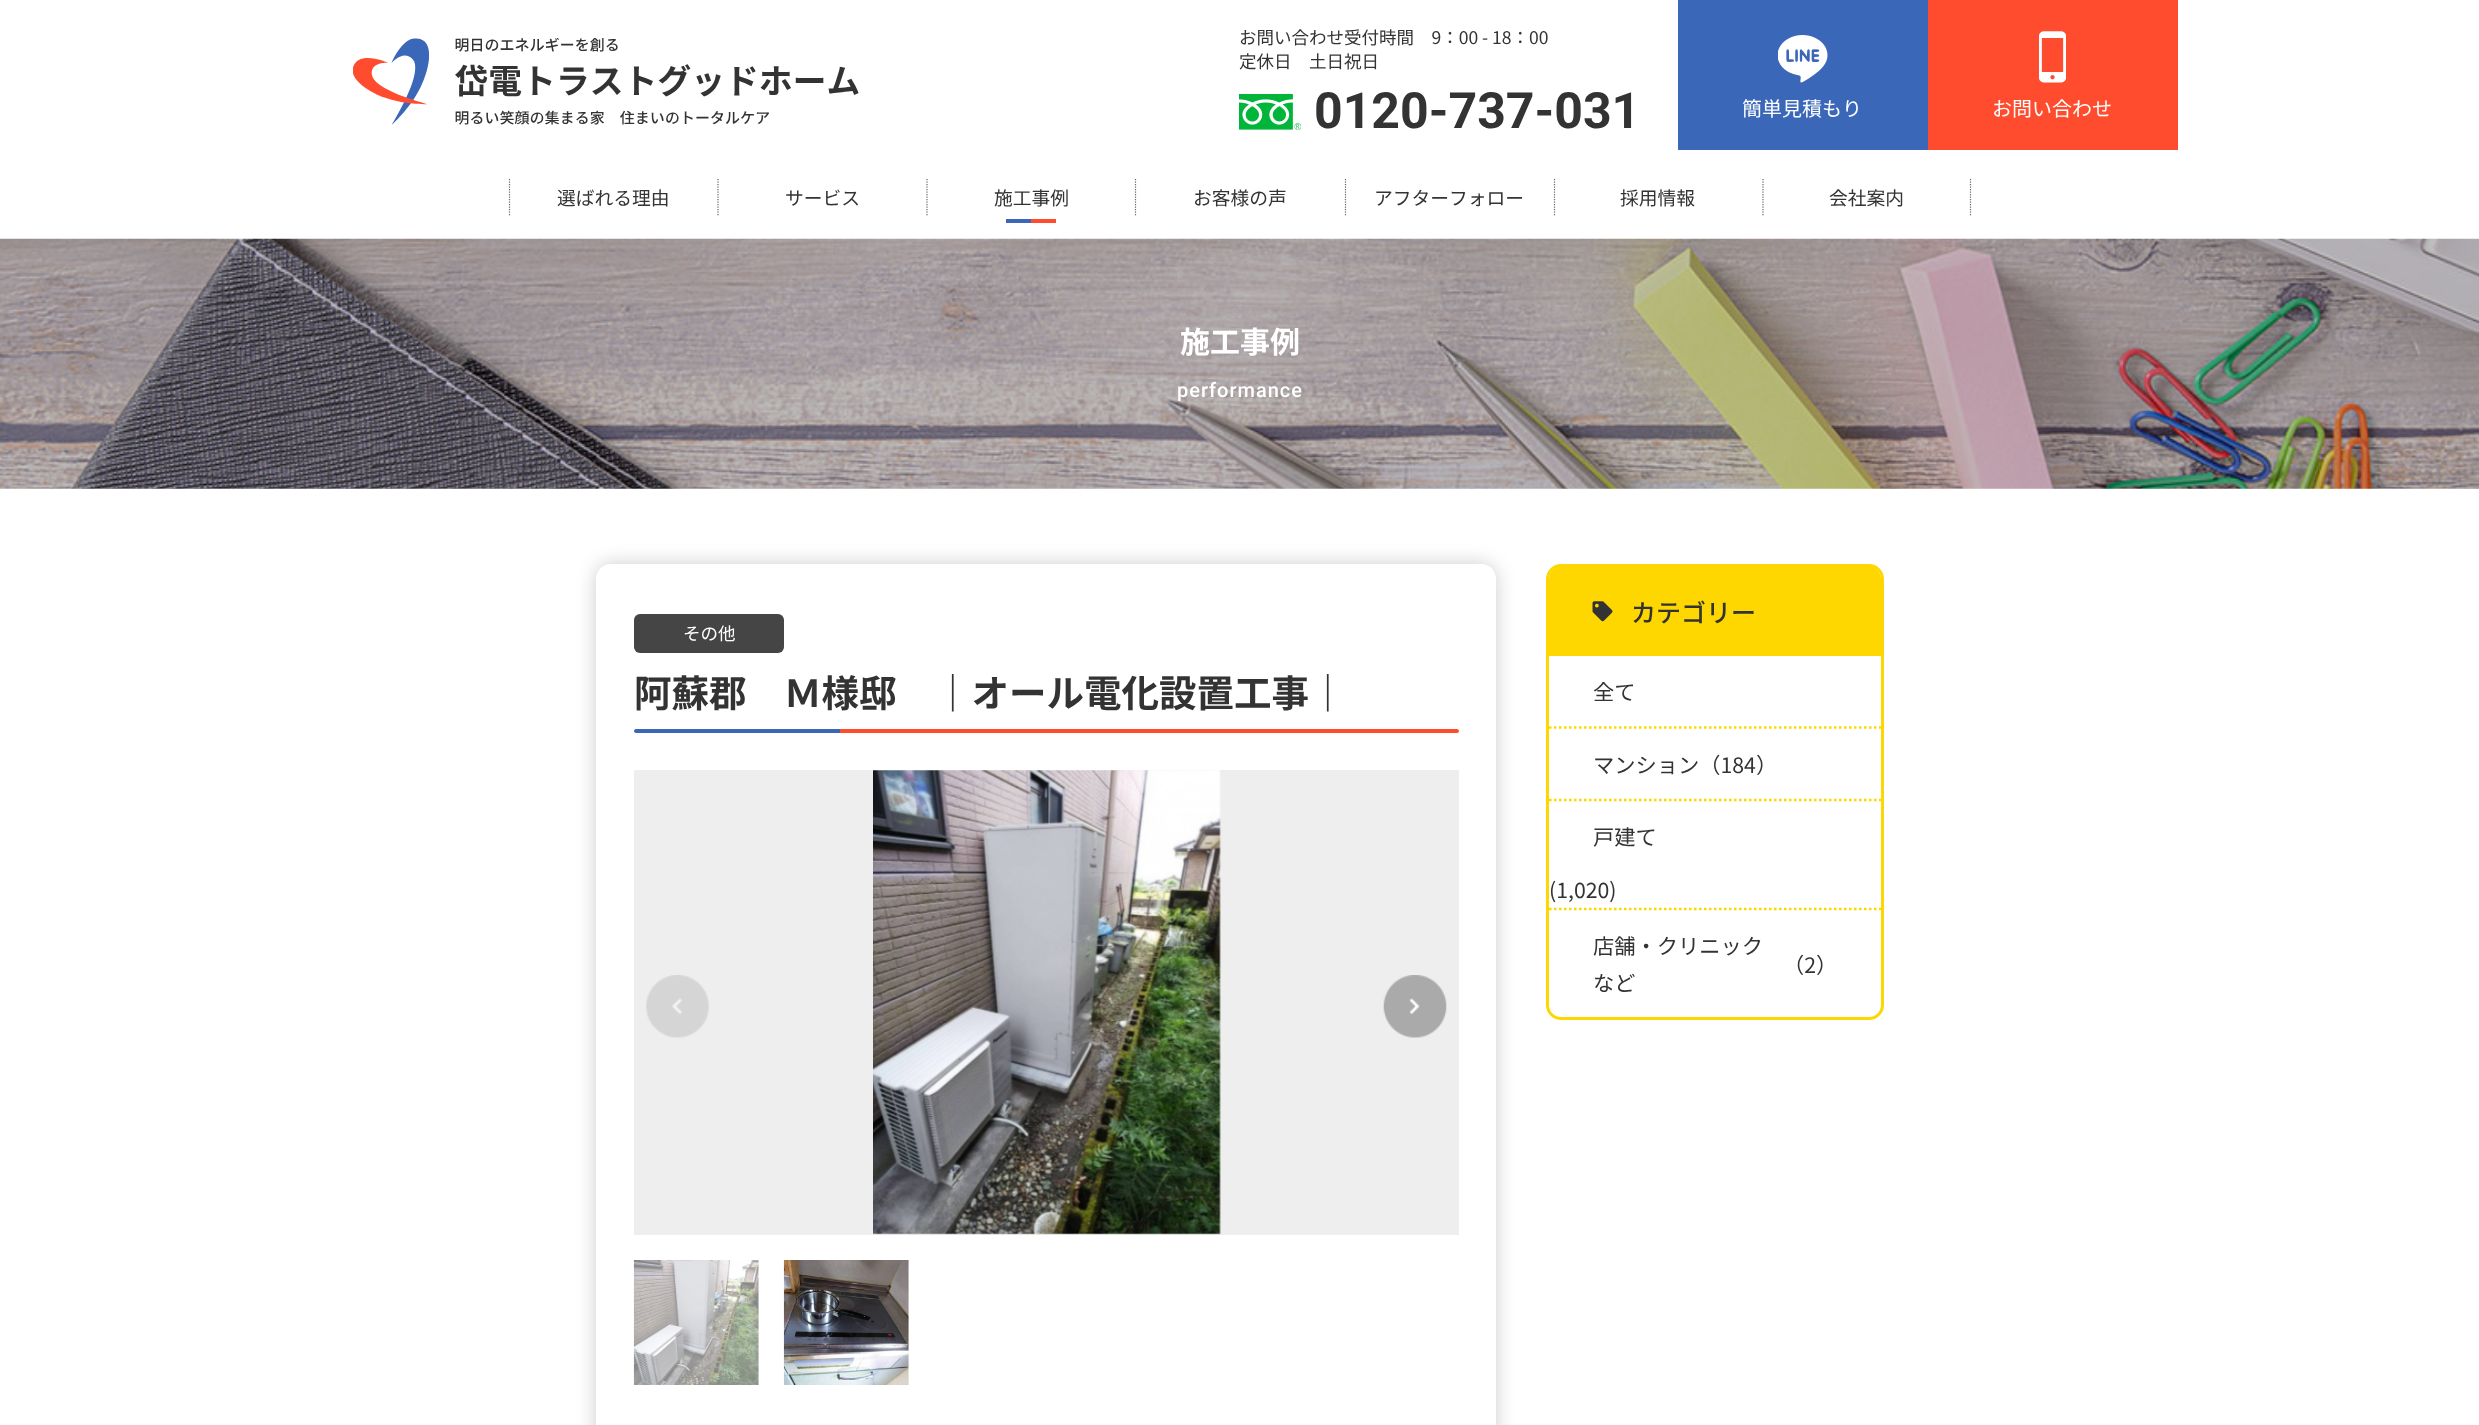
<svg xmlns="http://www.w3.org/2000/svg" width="2479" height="1425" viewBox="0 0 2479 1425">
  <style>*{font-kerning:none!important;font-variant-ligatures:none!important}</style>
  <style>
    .t1 { font: 17.5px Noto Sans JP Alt; fill: #333; }
    .t2 { font: 17.5px Noto Sans JP; fill: #333; }
    .t3 { font: bold 50px Roboto; fill: #333; }
    .t4 { font: 20px Noto Sans JP; fill: #fff; }
    .t5 { font: 18.75px Noto Sans JP; fill: #333; }
    .t6 { font: bold 30px Noto Sans JP; fill: #fff; }
    .t7 { font: 500 20px Roboto; letter-spacing: 1px; fill: #fff; }
    .t8 { font: 17.5px Noto Sans JP; fill: #fff; }
    .t9 { font: bold 37.5px Noto Sans JP; fill: #333; }
    .t10 { font: 500 25px Noto Sans JP; fill: #333; }
    .t11 { font: 21.25px Noto Sans JP; fill: #333; }
  </style>
  <defs>
    <clipPath id="clip1"><path d="M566 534H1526V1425H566ZM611 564H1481C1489.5 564 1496 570.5 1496 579V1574C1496 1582.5 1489.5 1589 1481 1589H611C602.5 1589 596 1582.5 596 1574V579C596 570.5 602.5 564 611 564Z" clip-rule="evenodd"/></clipPath>
  </defs>
  <rect width="100%" height="100%" fill="#fff"/>
  <image x="353" y="38" width="506" height="87" href="images/1.png"/>
  <text x="1239" y="44" class="t1">お問い合わせ受付時間　9：00 - 18：00</text>
  <text x="1239" y="68" class="t2">定休日　土日祝日</text>
  <image x="1239" y="94" width="62" height="36" href="images/2.png"/>
  <text x="1314" y="128" class="t3">0120-737-031</text>
  <rect x="1678" y="0" width="250" height="150" fill="#3b67b9"/>
  <image x="1778" y="35" width="50" height="48" href="images/3.png"/>
  <text x="1742" y="116" class="t4">簡単見積もり</text>
  <rect x="1928" y="0" width="250" height="150" fill="#ff4c2e"/>
  <image x="2039" y="31" width="27" height="52" href="images/4.png"/>
  <text x="1992" y="116" class="t4">お問い合わせ</text>
  <path d="M509.5 179V216" fill="none" stroke="#666" stroke-width="1.2" stroke-dasharray="1.25 1.25"/>
  <text x="557" y="205" class="t5">選ばれる理由</text>
  <path d="M718 179V216" fill="none" stroke="#666" stroke-width="1.2" stroke-dasharray="1.25 1.25"/>
  <text x="785" y="205" class="t5">サービス</text>
  <path d="M927 179V216" fill="none" stroke="#666" stroke-width="1.2" stroke-dasharray="1.25 1.25"/>
  <text x="994" y="205" class="t5">施工事例</text>
  <rect x="1006" y="219" width="25" height="4" fill="#3b67b9"/>
  <rect x="1031" y="219" width="25" height="4" fill="#ff4c2e"/>
  <path d="M1135.5 179V216" fill="none" stroke="#666" stroke-width="1.2" stroke-dasharray="1.25 1.25"/>
  <text x="1193" y="205" class="t5">お客様の声</text>
  <path d="M1345.5 179V216" fill="none" stroke="#666" stroke-width="1.2" stroke-dasharray="1.25 1.25"/>
  <text x="1374" y="205" class="t5">アフターフォロー</text>
  <path d="M1554.5 179V216" fill="none" stroke="#666" stroke-width="1.2" stroke-dasharray="1.25 1.25"/>
  <text x="1620" y="205" class="t5">採用情報</text>
  <path d="M1763 179V216" fill="none" stroke="#666" stroke-width="1.2" stroke-dasharray="1.25 1.25"/>
  <text x="1829" y="205" class="t5">会社案内</text>
  <path d="M1970.5 179V216" fill="none" stroke="#666" stroke-width="1.2" stroke-dasharray="1.25 1.25"/>
  <image x="0" y="238" width="2479" height="251" href="images/5.png"/>
  <text x="1180" y="353" class="t6">施工事例</text>
  <text x="1177" y="397" class="t7">performance</text>
  <g clip-path="url(#clip1)">
    <rect x="596" y="564" width="900" height="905" rx="15" fill="#00000033" filter="blur(9.5px)"/>
  </g>
  <rect x="634" y="614" width="150" height="39" rx="6" fill="#454545"/>
  <text x="683" y="640" class="t8">その他</text>
  <text x="634" y="707" class="t9">阿蘇郡　Ｍ様邸　｜オール電化設置工事｜</text>
  <path d="M636 729H840V733H636C635 733 634 732 634 731C634 730 635 729 636 729Z" fill="#3b67b9"/>
  <path d="M840 729H1457C1458 729 1459 730 1459 731C1459 732 1458 733 1457 733H840Z" fill="#ff4c2e"/>
  <rect x="634" y="770" width="825" height="465" fill="#eee"/>
  <image x="873" y="770" width="348" height="465" href="images/6.png"/>
  <image x="646" y="975" width="63" height="63" href="images/7.png"/>
  <image x="1383" y="975" width="64" height="63" href="images/8.png"/>
  <image x="633" y="1260" width="126" height="125" href="images/9.png"/>
  <image x="783" y="1260" width="126" height="125" href="images/10.png"/>
  <rect x="1547.5" y="565.5" width="335" height="453" rx="13.5" fill="none" stroke="#ffd700" stroke-width="3"/>
  <path d="M1562 566H1868C1875 566 1881 572 1881 579V656H1549V579C1549 572 1555 566 1562 566Z" fill="#ffd700"/>
  <image x="1592" y="601" width="21" height="21" href="images/11.png"/>
  <text x="1631" y="622" class="t10">カテゴリー</text>
  <path d="M1549 727.5H1881" fill="none" stroke="#ffd700" stroke-width="2.5" stroke-dasharray="2.5 2.5"/>
  <text x="1593" y="700" class="t11">全て</text>
  <path d="M1549 800H1881" fill="none" stroke="#ffd700" stroke-width="2.5" stroke-dasharray="2.5 2.5"/>
  <text x="1593" y="773" class="t11">マンション（184）</text>
  <path d="M1549 909H1881" fill="none" stroke="#ffd700" stroke-width="2.5" stroke-dasharray="2.5 2.5"/>
  <text x="1593" y="845" class="t11">戸建て</text>
  <text x="1549" y="898" class="t11">(1,020)</text>
  <text x="1593" y="954" class="t11">店舗・クリニック</text>
  <text x="1783" y="973" class="t11">（2）</text>
  <text x="1593" y="991" class="t11">など</text>
</svg>
